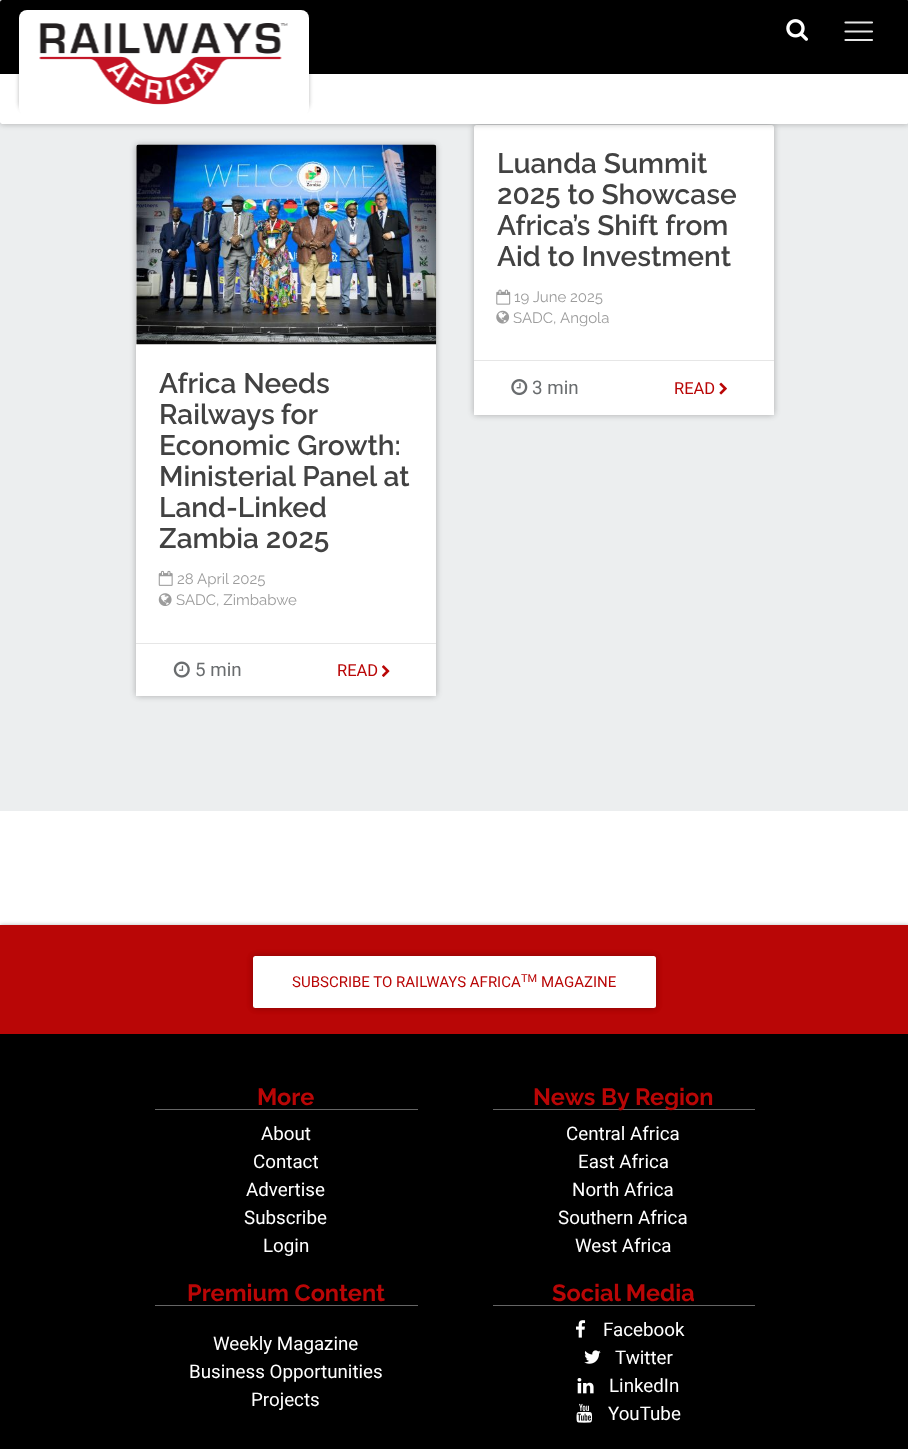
<svg xmlns="http://www.w3.org/2000/svg" width="908" height="1449" viewBox="0 0 908 1449">
  <style>
    .t1 { font: 100 28.1px Raleway; fill: #424242; }
    .t2 { font: 15px Raleway; fill: #9c9c9c; }
    .t3 { font: 18.75px Roboto; fill: #696c6e; }
    .t4 { font: 16.5px Roboto; fill: #b90606; }
    .t5 { font: 15px Roboto; fill: #b90606; }
    .t6 { font: 11px Roboto; fill: #b90606; }
    .t7 { font: bold 23.5px Raleway; fill: #b90606; }
    .t8 { font: 18.75px Roboto; fill: #fff; }
  </style>
  <rect width="100%" height="100%" fill="#fff"/>
  <rect x="0" y="0" width="908" height="811" fill="#eceeef"/>
  <rect x="474" y="125" width="300" height="290" rx="2.5" fill="#0000001f" filter="blur(3px)"/>
  <rect x="474" y="125" width="300" height="290" rx="2.5" fill="#00000029" filter="blur(3px)"/>
  <rect x="474" y="125" width="300" height="290" rx="2.5" fill="#fff"/>
  <rect x="0" y="0" width="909" height="124" rx="2.5" fill="#0000001f" filter="blur(3px)"/>
  <rect x="0" y="0" width="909" height="124" rx="2.5" fill="#00000029" filter="blur(3px)"/>
  <path d="M2.5 0H906.5C908 0 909 1 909 2.5V74H0V2.5C0 1 1 0 2.5 0Z" fill="#000"/>
  <path d="M0 74H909V121.5C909 123 908 124 906.5 124H2.5C1 124 0 123 0 121.5Z" fill="#fff"/>
  <rect x="19" y="5" width="290" height="106" rx="8" fill="#0000001f" filter="blur(2px)"/>
  <rect x="19" y="5" width="290" height="106" rx="8" fill="#00000029" filter="blur(2px)"/>
  <rect x="19" y="10" width="290" height="106" rx="8" fill="#fff"/>
  <image x="39" y="23" width="249" height="82" href="images/1.png"/>
  <image x="786" y="19" width="22" height="22" href="images/2.png"/>
  <path d="M845.5 22.5H872M845.5 31.5H872M845.5 40H872" fill="none" stroke="#e6e6e6" stroke-width="2.2" stroke-linecap="round"/>
  <text x="497" y="173" class="t1">Luanda Summit</text>
  <text x="497" y="204" class="t1">2025 to Showcase</text>
  <text x="497" y="235" class="t1">Africa’s Shift from</text>
  <text x="497" y="266" class="t1">Aid to Investment</text>
  <image x="496" y="289" width="15" height="16" href="images/3.png"/>
  <text x="514" y="302" class="t2">19 June 2025</text>
  <image x="496" y="310" width="14" height="14" href="images/4.png"/>
  <text x="513" y="323" class="t2">SADC,</text>
  <text x="560" y="323" class="t2">Angola</text>
  <rect x="474" y="413" width="300" height="2" fill="#fff"/>
  <rect x="474" y="360" width="300" height="1" fill="#e6e6e6"/>
  <image x="511" y="379" width="17" height="17" href="images/5.png"/>
  <text x="532" y="394" class="t3">3 min</text>
  <text x="674" y="394" class="t4">READ</text>
  <image x="719" y="382" width="8" height="13" href="images/6.png"/>
  <rect x="136" y="145" width="300" height="551" rx="2.5" fill="#0000001f" filter="blur(3px)"/>
  <rect x="136" y="145" width="300" height="551" rx="2.5" fill="#00000029" filter="blur(3px)"/>
  <rect x="136" y="145" width="300" height="551" rx="2.5" fill="#fff"/>
  <image x="136" y="144" width="301" height="201" href="images/7.png"/>
  <text x="159" y="393" class="t1">Africa Needs</text>
  <text x="159" y="424" word-spacing="-1" class="t1">Railways for</text>
  <text x="159" y="455" class="t1">Economic Growth:</text>
  <text x="159" y="486" class="t1">Ministerial Panel at</text>
  <text x="159" y="517" class="t1">Land-Linked</text>
  <text x="159" y="548" class="t1">Zambia 2025</text>
  <image x="158" y="570" width="15" height="16" href="images/8.png"/>
  <text x="177" y="584" class="t2">28 April 2025</text>
  <image x="158" y="593" width="14" height="13" href="images/9.png"/>
  <text x="176" y="605" class="t2">SADC, Zimbabwe</text>
  <rect x="136" y="694" width="300" height="2" fill="#fff"/>
  <rect x="136" y="643" width="300" height="1" fill="#e6e6e6"/>
  <image x="173" y="661" width="17" height="17" href="images/10.png"/>
  <text x="195" y="676" class="t3">5 min</text>
  <text x="337" y="676" class="t4">READ</text>
  <image x="382" y="665" width="8" height="12" href="images/11.png"/>
  <rect x="0" y="925" width="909" height="109" fill="#0000001f" filter="blur(2px)"/>
  <rect x="0" y="925" width="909" height="109" fill="#00000029" filter="blur(2px)"/>
  <rect x="0" y="925" width="908" height="109" fill="#b90606"/>
  <rect x="253" y="956" width="403" height="52" rx="2.5" fill="#0000001f" filter="blur(3px)"/>
  <rect x="253" y="956" width="403" height="52" rx="2.5" fill="#00000029" filter="blur(3px)"/>
  <rect x="253" y="956" width="403" height="52" rx="2.5" fill="#fff"/>
  <text x="292" y="987" class="t5">SUBSCRIBE TO RAILWAYS AFRICA</text>
  <text x="521" y="982" class="t6">TM</text>
  <text x="541" y="987" class="t5">MAGAZINE</text>
  <rect x="0" y="1034" width="908" height="415" fill="#000"/>
  <rect x="155" y="1109" width="263" height="1" fill="#656565"/>
  <text x="257" y="1105" class="t7">More</text>
  <text x="261" y="1140" class="t8">About</text>
  <text x="253" y="1168" class="t8">Contact</text>
  <text x="246" y="1196" class="t8">Advertise</text>
  <text x="244" y="1224" class="t8">Subscribe</text>
  <text x="263" y="1252" class="t8">Login</text>
  <rect x="493" y="1109" width="262" height="1" fill="#656565"/>
  <text x="533" y="1105" class="t7">News By Region</text>
  <text x="566" y="1140" class="t8">Central Africa</text>
  <text x="578" y="1168" class="t8">East Africa</text>
  <text x="572" y="1196" class="t8">North Africa</text>
  <text x="558" y="1224" class="t8">Southern Africa</text>
  <text x="575" y="1252" class="t8">West Africa</text>
  <rect x="155" y="1305" width="263" height="1" fill="#656565"/>
  <text x="187" y="1301" class="t7">Premium Content</text>
  <text x="213" y="1350" class="t8">Weekly Magazine</text>
  <text x="189" y="1378" class="t8">Business Opportunities</text>
  <text x="251" y="1406" class="t8">Projects</text>
  <rect x="493" y="1305" width="262" height="1" fill="#656565"/>
  <text x="552" y="1301" class="t7">Social Media</text>
  <image x="576" y="1320" width="10" height="18" href="images/12.png"/>
  <text x="603" y="1336" class="t8">Facebook</text>
  <image x="584" y="1350" width="17" height="14" href="images/13.png"/>
  <text x="615" y="1364" class="t8">Twitter</text>
  <image x="577" y="1378" width="17" height="16" href="images/14.png"/>
  <text x="609" y="1392" class="t8">LinkedIn</text>
  <image x="576" y="1403" width="17" height="20" href="images/15.png"/>
  <text x="608" y="1420" class="t8">YouTube</text>
</svg>
